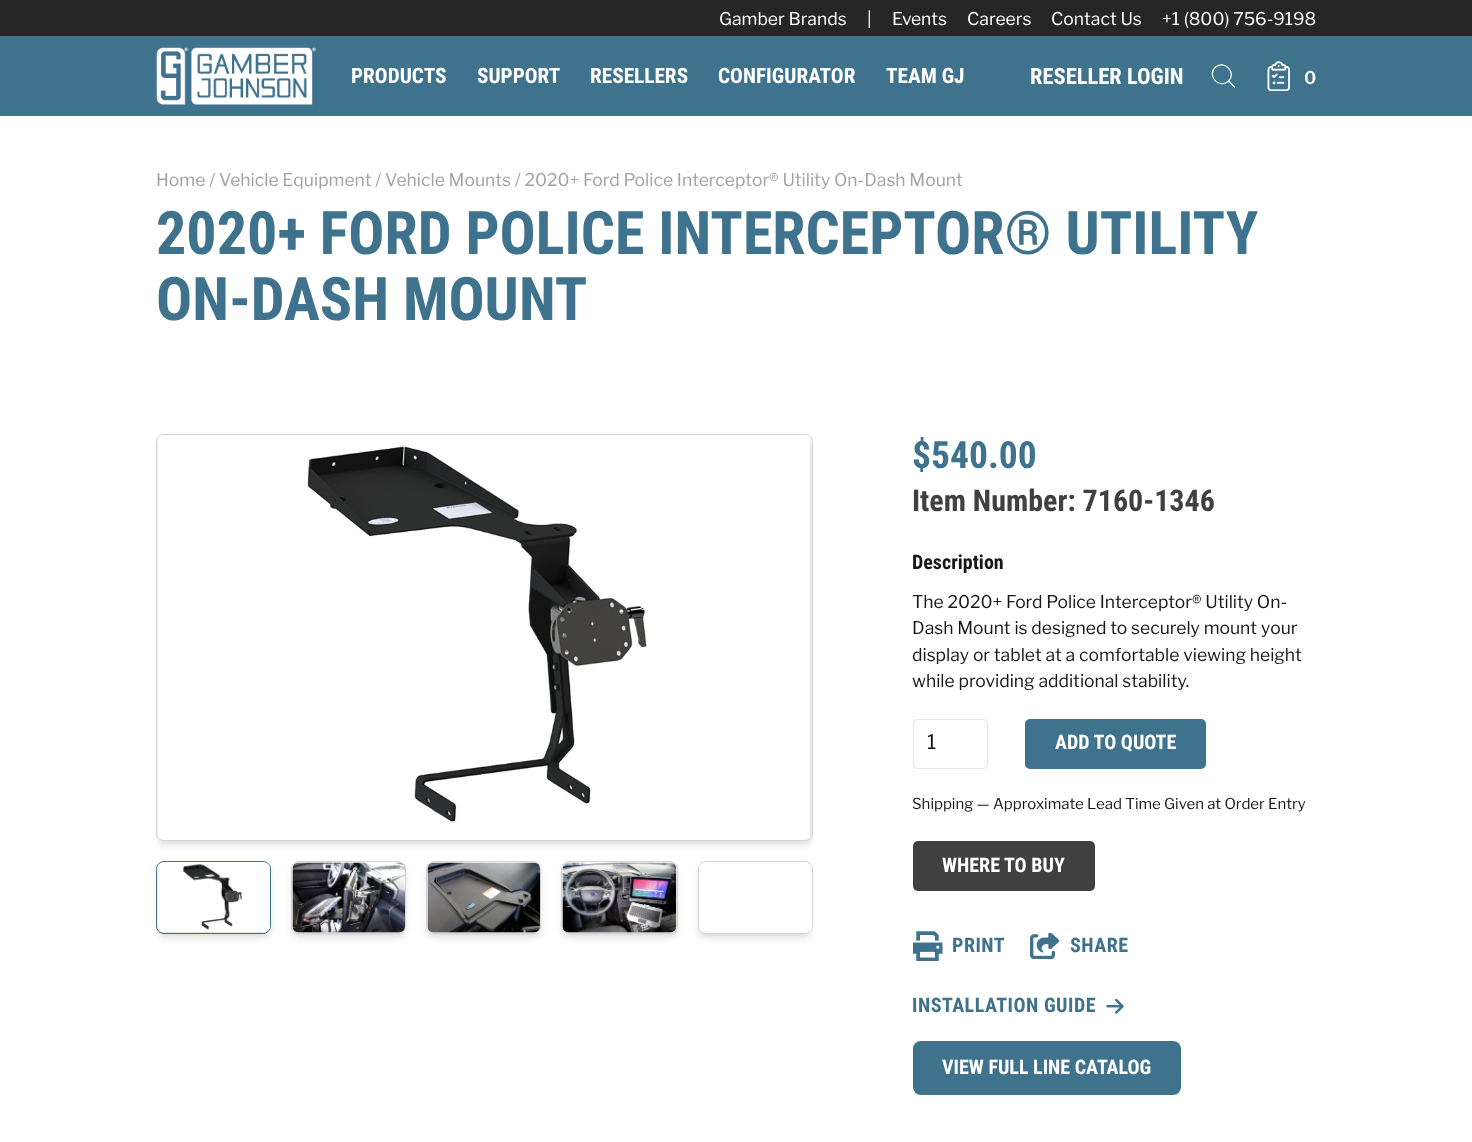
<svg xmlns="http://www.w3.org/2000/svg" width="1472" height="1142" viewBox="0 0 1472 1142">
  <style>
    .t1 { font: 17.5px Libre Franklin; fill: #fff; }
    .t2 { font: bold 21.25px Roboto Condensed; fill: #fff; }
    .t3 { font: bold 22.5px Roboto Condensed; fill: #fff; }
    .t4 { font: 600 17.5px Libre Franklin; fill: #fff; }
    .t5 { font: 17.5px Libre Franklin; fill: #a3a3a3; }
    .t6 { font: bold 60px Roboto Condensed; fill: #3f738d; }
    .t7 { font: bold 37.5px Roboto Condensed; fill: #3f738d; }
    .t8 { font: bold 30px Roboto Condensed; fill: #404040; }
    .t9 { font: bold 20px Roboto Condensed; fill: #171717; }
    .t10 { font: 17.5px Libre Franklin; fill: #171717; }
    .t11 { font: 20px Libre Franklin; fill: #171717; }
    .t12 { font: bold 20px Roboto Condensed; fill: #fff; }
    .t13 { font: 15px Libre Franklin; fill: #171717; }
    .t14 { font: bold 20px Roboto Condensed; letter-spacing: 0.5px; fill: #3f738d; }
  </style>
  <defs>
    <clipPath id="clip1"><rect x="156" y="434" width="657" height="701"/></clipPath>
    <clipPath id="clip2"><path d="M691 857H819V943H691ZM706 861H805C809.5 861 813 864.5 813 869V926C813 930.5 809.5 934 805 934H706C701.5 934 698 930.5 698 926V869C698 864.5 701.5 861 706 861Z" clip-rule="evenodd"/></clipPath>
    <clipPath id="clip3"><path d="M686 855H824V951H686ZM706 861H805C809.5 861 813 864.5 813 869V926C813 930.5 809.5 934 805 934H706C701.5 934 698 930.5 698 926V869C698 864.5 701.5 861 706 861Z" clip-rule="evenodd"/></clipPath>
  </defs>
  <rect width="100%" height="100%" fill="#fff"/>
  <rect x="0" y="0" width="1472" height="36" fill="#262626"/>
  <text x="719" y="25" class="t1">Gamber Brands</text>
  <text x="867" y="25" class="t1">|</text>
  <text x="892" y="25" class="t1">Events</text>
  <text x="967" y="25" class="t1">Careers</text>
  <text x="1051" y="25" class="t1">Contact Us</text>
  <text x="1162" y="25" class="t1">+1 (800) 756-9198</text>
  <rect x="0" y="36" width="1472" height="80" fill="#3f738d"/>
  <image x="156" y="47" width="160" height="58" href="images/1.png"/>
  <text x="351" y="83" class="t2">PRODUCTS</text>
  <text x="477" y="83" class="t2">SUPPORT</text>
  <text x="590" y="83" class="t2">RESELLERS</text>
  <text x="718" y="83" class="t2">CONFIGURATOR</text>
  <text x="886" y="83" class="t2">TEAM GJ</text>
  <text x="1030" y="84" class="t3">RESELLER LOGIN</text>
  <path d="M1235 87.5L1228.5 81M1228.5 81C1237 72.5 1224 59 1215 67.5C1206.5 76.5 1220 89.5 1228.5 81Z" fill="none" stroke="#fff" stroke-width="1.2"/>
  <image x="1267" y="61" width="23" height="30" href="images/2.png"/>
  <text x="1304" y="84" class="t4">0</text>
  <text x="156" y="186" class="t5">Home / Vehicle Equipment / Vehicle Mounts / 2020+ Ford Police Interceptor® Utility On-Dash Mount</text>
  <text x="156" y="254" class="t6">2020+ FORD POLICE INTERCEPTOR® UTILITY</text>
  <text x="156" y="320" class="t6">ON-DASH MOUNT</text>
  <rect x="159" y="439" width="651" height="402" rx="5" fill="#0000001a" filter="blur(2.5px)"/>
  <g clip-path="url(#clip1)">
    <rect x="158" y="440" width="653" height="405" rx="6" fill="#0000001a" filter="blur(4px)"/>
  </g>
  <rect x="156.5" y="434.5" width="656" height="406" rx="7.5" fill="none" stroke="#d4d4d4"/>
  <image x="158" y="435" width="652" height="405" href="images/3.png"/>
  <rect x="159" y="866" width="110" height="68" rx="5" fill="#0000001a" filter="blur(2.5px)"/>
  <g clip-path="url(#clip1)">
    <rect x="158" y="868" width="112" height="70" rx="6" fill="#0000001a" filter="blur(4px)"/>
  </g>
  <rect x="156.5" y="861.5" width="114" height="72" rx="7.5" fill="none" stroke="#3f738d"/>
  <image x="157" y="862" width="113" height="71" href="images/4.png"/>
  <rect x="294" y="866" width="110" height="68" rx="5" fill="#0000001a" filter="blur(2.5px)"/>
  <rect x="293" y="868" width="112" height="70" rx="6" fill="#0000001a" filter="blur(4px)"/>
  <rect x="291.5" y="861.5" width="114" height="72" rx="7.5" fill="none" stroke="#d4d4d4"/>
  <image x="292" y="862" width="113" height="71" href="images/5.png"/>
  <rect x="429" y="866" width="110" height="68" rx="5" fill="#0000001a" filter="blur(2.5px)"/>
  <rect x="428" y="868" width="112" height="70" rx="6" fill="#0000001a" filter="blur(4px)"/>
  <rect x="426.5" y="861.5" width="114" height="72" rx="7.5" fill="none" stroke="#d4d4d4"/>
  <image x="427" y="862" width="113" height="71" href="images/6.png"/>
  <rect x="564" y="866" width="111" height="68" rx="5" fill="#0000001a" filter="blur(2.5px)"/>
  <rect x="563" y="868" width="113" height="70" rx="6" fill="#0000001a" filter="blur(4px)"/>
  <rect x="561.5" y="861.5" width="116" height="72" rx="7.5" fill="none" stroke="#d4d4d4"/>
  <image x="562" y="862" width="115" height="71" href="images/7.png"/>
  <g clip-path="url(#clip2)">
    <rect x="700" y="866" width="110" height="68" rx="5" fill="#0000001a" filter="blur(2.5px)"/>
  </g>
  <g clip-path="url(#clip1)">
    <g clip-path="url(#clip3)">
      <rect x="699" y="868" width="112" height="70" rx="6" fill="#0000001a" filter="blur(4px)"/>
    </g>
  </g>
  <rect x="698.5" y="861.5" width="114" height="72" rx="7.5" fill="none" stroke="#d4d4d4"/>
  <text x="912" y="468" class="t7">$540.00</text>
  <text x="912" y="511" class="t8">Item Number: 7160-1346</text>
  <text x="912" y="569" class="t9">Description</text>
  <text x="912" y="608" class="t10">The 2020+ Ford Police Interceptor® Utility On-</text>
  <text x="912" y="634" class="t10">Dash Mount is designed to securely mount your</text>
  <text x="912" y="661" class="t10">display or tablet at a comfortable viewing height</text>
  <text x="912" y="687" class="t10">while providing additional stability.</text>
  <rect x="913.5" y="719.5" width="74" height="49" rx="4.5" fill="none" stroke="#e5e5e5"/>
  <text x="927" y="749" class="t11">1</text>
  <rect x="1025" y="719" width="181" height="50" rx="5" fill="#3f738d"/>
  <text x="1055" y="749" class="t12">ADD TO QUOTE</text>
  <text x="912" y="809" class="t13">Shipping — Approximate Lead Time Given at Order Entry</text>
  <rect x="913" y="841" width="182" height="50" rx="5" fill="#404040"/>
  <text x="942" y="872" class="t12">WHERE TO BUY</text>
  <image x="913" y="931" width="30" height="30" href="images/8.png"/>
  <text x="952" y="952" class="t14">PRINT</text>
  <image x="1030" y="933" width="30" height="26" href="images/9.png"/>
  <text x="1070" y="952" class="t14">SHARE</text>
  <text x="912" y="1012" class="t14">INSTALLATION GUIDE</text>
  <image x="1106" y="998" width="18" height="16" href="images/10.png"/>
  <rect x="913" y="1041" width="268" height="54" rx="8" fill="#3f738d"/>
  <text x="942" y="1074" class="t12">VIEW FULL LINE CATALOG</text>
</svg>
